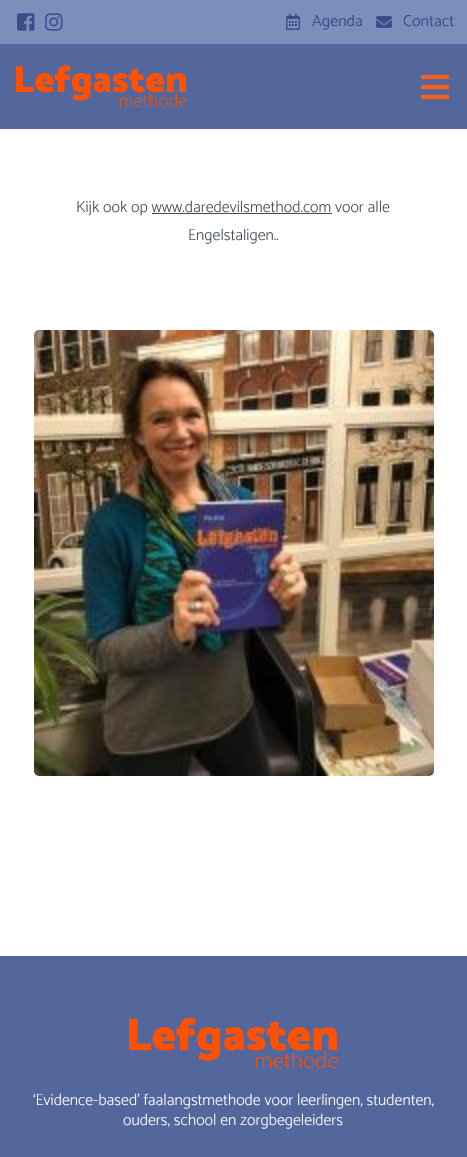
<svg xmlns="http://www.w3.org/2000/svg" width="467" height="1157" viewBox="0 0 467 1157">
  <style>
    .t1 { font: 100 16px 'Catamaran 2'; fill: #3a4f8a; }
    .t2 { font: 100 16px Catamaran; fill: #3e4c59; }
    .t3 { font: 100 16px Catamaran; fill: #fff; }
  </style>
  <rect width="100%" height="100%" fill="#fff"/>
  <rect x="0" y="0" width="467" height="44" fill="#7d8ebd"/>
  <image x="17" y="13" width="18" height="18" href="images/1.png"/>
  <image x="45" y="13" width="18" height="18" href="images/2.png"/>
  <image x="286" y="14" width="14" height="16" href="images/3.png"/>
  <text x="312" y="26" class="t1">Agenda</text>
  <image x="376" y="16" width="16" height="12" href="images/4.png"/>
  <text x="403" y="26" class="t1">Contact</text>
  <rect x="0" y="44" width="467" height="85" fill="#53679d"/>
  <image x="16" y="65" width="171" height="42" href="images/5.png"/>
  <image x="421" y="74" width="28" height="26" href="images/6.png"/>
  <text x="76" y="212" class="t2">Kijk ook op www.daredevilsmethod.com voor alle</text>
  <rect x="152" y="213" width="180" height="1" fill="#3e4c59"/>
  <text x="188" y="240" class="t2">Engelstaligen..</text>
  <image x="34" y="330" width="400" height="446" href="images/7.png"/>
  <rect x="0" y="956" width="467" height="201" fill="#53679d"/>
  <image x="129" y="1017" width="209" height="52" href="images/8.png"/>
  <text x="33" y="1105" class="t3">‘Evidence-based’ faalangstmethode voor leerlingen, studenten,</text>
  <text x="123" y="1125" class="t3">ouders, school en zorgbegeleiders</text>
</svg>
